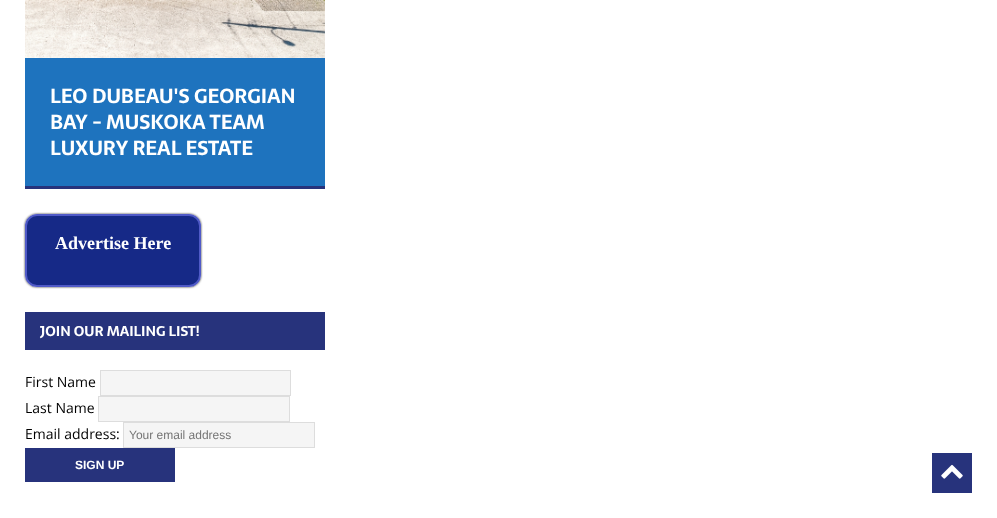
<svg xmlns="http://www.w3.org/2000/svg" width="997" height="518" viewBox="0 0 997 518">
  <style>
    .t1 { font: bold 20px Sarala; fill: #fff; }
    .t2 { font: bold 18px Liberation Serif; fill: #fff; }
    .t3 { font: bold 14px Sarala; fill: #fff; }
    .t4 { font: 14px Open Sans; fill: #000; }
    .t5 { font: 12px Liberation Sans; fill: #757575; }
    .t6 { font: bold 12px Liberation Sans; fill: #fff; }
  </style>
  <defs>
    <clipPath id="clip1"><path d="M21 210H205V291H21ZM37 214H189C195.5 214 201 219.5 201 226V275C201 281.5 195.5 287 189 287H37C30.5 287 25 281.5 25 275V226C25 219.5 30.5 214 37 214Z" clip-rule="evenodd"/></clipPath>
  </defs>
  <rect width="100%" height="100%" fill="#fff"/>
  <image x="25" y="0" width="300" height="58" href="images/1.png"/>
  <rect x="25" y="58" width="300" height="128" fill="#1e73be"/>
  <rect x="25" y="186" width="300" height="3" fill="#27337c"/>
  <text x="50" y="103" class="t1">LEO DUBEAU'S GEORGIAN</text>
  <text x="50" y="129" class="t1">BAY - MUSKOKA TEAM</text>
  <text x="50" y="155" class="t1">LUXURY REAL ESTATE</text>
  <g clip-path="url(#clip1)">
    <rect x="25" y="214" width="176" height="73" rx="12" fill="#333" filter="blur(1px)"/>
  </g>
  <rect x="26" y="215" width="174" height="71" rx="11" fill="#162987" stroke="#505ac7" stroke-width="2"/>
  <text x="55" y="249" class="t2">Advertise Here</text>
  <rect x="25" y="312" width="300" height="38" fill="#27337c"/>
  <text x="40" y="336" class="t3">JOIN OUR MAILING LIST!</text>
  <text x="25" y="387" class="t4">First Name</text>
  <rect x="100.5" y="370.5" width="190" height="25" fill="#f5f5f5" stroke="#ddd"/>
  <text x="25" y="413" class="t4">Last Name</text>
  <rect x="98.5" y="396.5" width="191" height="25" fill="#f5f5f5" stroke="#ddd"/>
  <text x="25" y="439" class="t4">Email address:</text>
  <rect x="123.5" y="422.5" width="191" height="25" fill="#f5f5f5" stroke="#ddd"/>
  <text x="129" y="439" class="t5">Your email address</text>
  <rect x="25" y="448" width="150" height="34" fill="#27337c"/>
  <text x="75" y="469" class="t6">SIGN UP</text>
  <rect x="932" y="453" width="40" height="40" fill="#27337c"/>
  <image x="941" y="464" width="22" height="15" href="images/2.png"/>
</svg>
